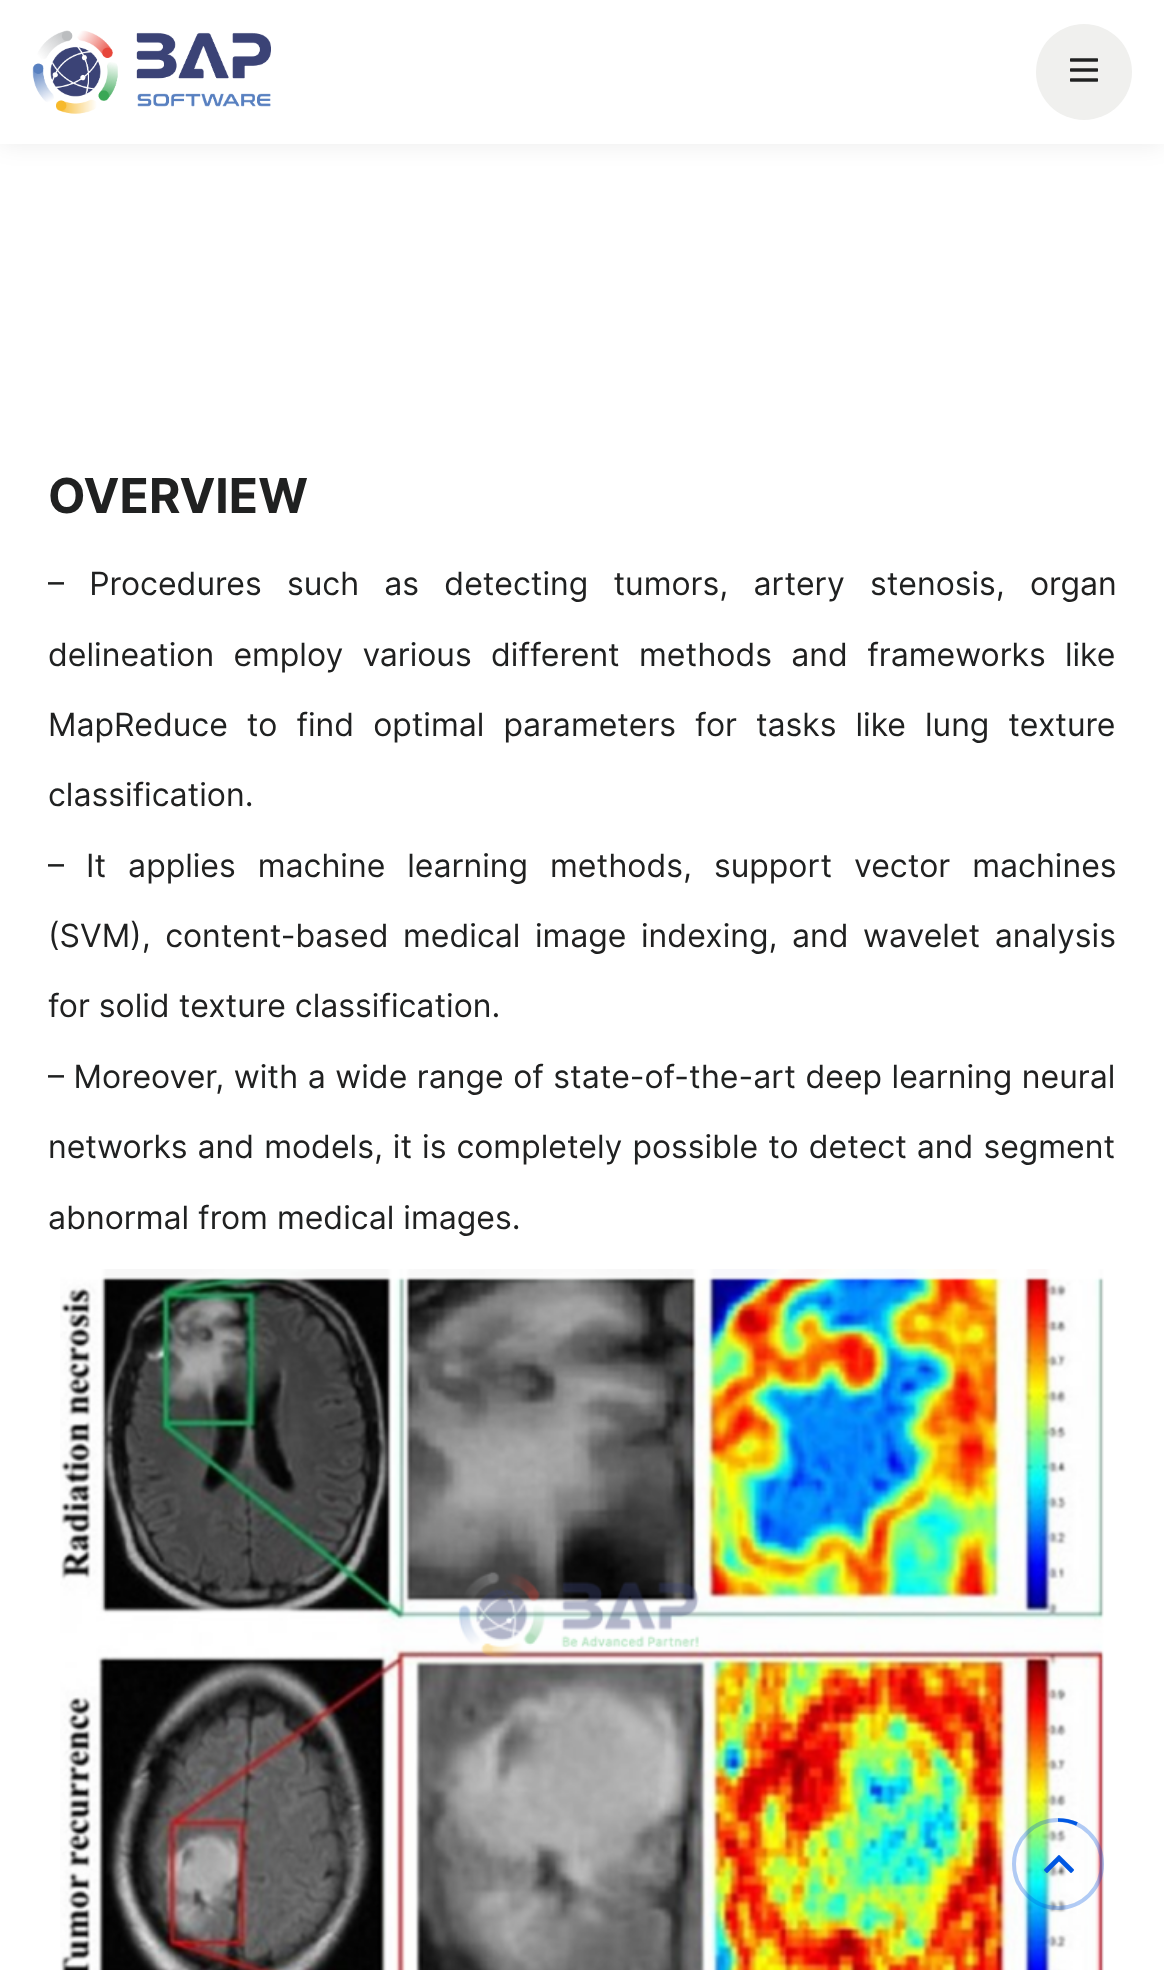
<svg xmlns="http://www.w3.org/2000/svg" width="1164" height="1970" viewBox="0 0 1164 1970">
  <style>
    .t1 { font: bold 48px Inter; fill: #202121; }
    .t2 { font: 32px Inter; fill: #202121; }
  </style>
  <rect width="100%" height="100%" fill="#fff"/>
  <rect x="0" y="0" width="1164" height="144" fill="#00000014" filter="blur(12px)"/>
  <rect x="0" y="0" width="1164" height="144" fill="#fff"/>
  <image x="32" y="30" width="239" height="84" href="images/1.png"/>
  <circle cx="1084" cy="72" r="48" fill="#f0f0ee"/>
  <image x="1070" y="58" width="28" height="24" href="images/2.png"/>
  <text x="48" y="513" class="t1">OVERVIEW</text>
  <text x="48" y="595" word-spacing="16.25" class="t2">– Procedures such as detecting tumors, artery stenosis, organ</text>
  <text x="48" y="666" word-spacing="10.25" class="t2">delineation employ various different methods and frameworks like</text>
  <text x="48" y="736" word-spacing="10" class="t2">MapReduce to find optimal parameters for tasks like lung texture</text>
  <text x="48" y="806" class="t2">classification.</text>
  <text x="48" y="877" word-spacing="13" class="t2">– It applies machine learning methods, support vector machines</text>
  <text x="48" y="947" word-spacing="5.5" class="t2">(SVM), content-based medical image indexing, and wavelet analysis</text>
  <text x="48" y="1017" class="t2">for solid texture classification.</text>
  <text x="48" y="1088" word-spacing="0.5" class="t2">– Moreover, with a wide range of state-of-the-art deep learning neural</text>
  <text x="48" y="1158" word-spacing="1" class="t2">networks and models, it is completely possible to detect and segment</text>
  <text x="48" y="1229" class="t2">abnormal from medical images.</text>
  <image x="60" y="1269" width="1044" height="701" href="images/3.png"/>
  <circle cx="1058" cy="1864" r="44" fill="none" stroke="#0057e24d" stroke-width="4"/>
  <path d="M1058 1820C1065 1820 1071.5 1821.5 1077 1824" fill="none" stroke="#0057e2" stroke-width="3.6"/>
  <image x="1044" y="1855" width="30" height="18" href="images/4.png"/>
</svg>
